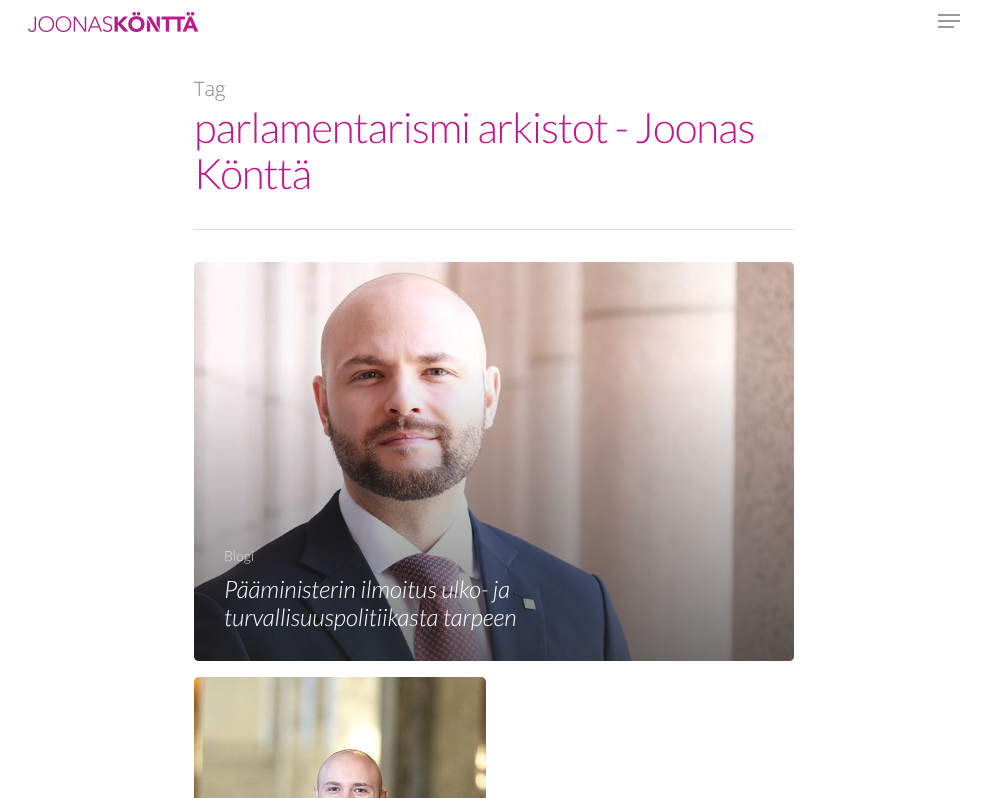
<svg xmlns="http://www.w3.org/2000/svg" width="988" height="798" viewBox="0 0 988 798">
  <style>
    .t1 { font: 300 20px Open Sans; fill: #888; }
    .t2 { font: 300 42px Lato; letter-spacing: -1px; fill: #c6148c; }
    .t3 { font: 300 14px Lato; fill: #dbdadb; }
    .t4 { font: italic 300 24px Lato; fill: #fff; }
  </style>
  <defs>
    <linearGradient id="g1" gradientUnits="userSpaceOnUse" x1="496" y1="362" x2="496" y2="663"><stop offset="0" stop-color="#232323" stop-opacity="0"/><stop offset="1" stop-color="#232323" stop-opacity="0.65"/></linearGradient>
  </defs>
  <rect width="100%" height="100%" fill="#fff"/>
  <image x="28" y="12" width="170" height="20" href="images/1.png"/>
  <rect x="938" y="14" width="22" height="2" fill="#999"/>
  <rect x="938" y="26" width="16" height="2" fill="#999"/>
  <rect x="938" y="20" width="22" height="2" fill="#999"/>
  <rect x="194" y="229" width="600" height="1" fill="#ddd"/>
  <text x="194" y="96" class="t1">Tag</text>
  <text x="194" y="143" class="t2">parlamentarismi arkistot - Joonas</text>
  <text x="194" y="189" class="t2">Könttä</text>
  <image x="194" y="262" width="600" height="399" href="images/2.png"/>
  <path d="M194 362H794V656C794 659 792 661 789 661H199C196 661 194 659 194 656Z" fill="url(#g1)"/>
  <text x="224" y="561" class="t3">Blogi</text>
  <text x="224" y="598" class="t4">Pääministerin ilmoitus ulko- ja</text>
  <text x="224" y="626" class="t4">turvallisuuspolitiikasta tarpeen</text>
  <image x="194" y="677" width="292" height="121" href="images/3.png"/>
</svg>
